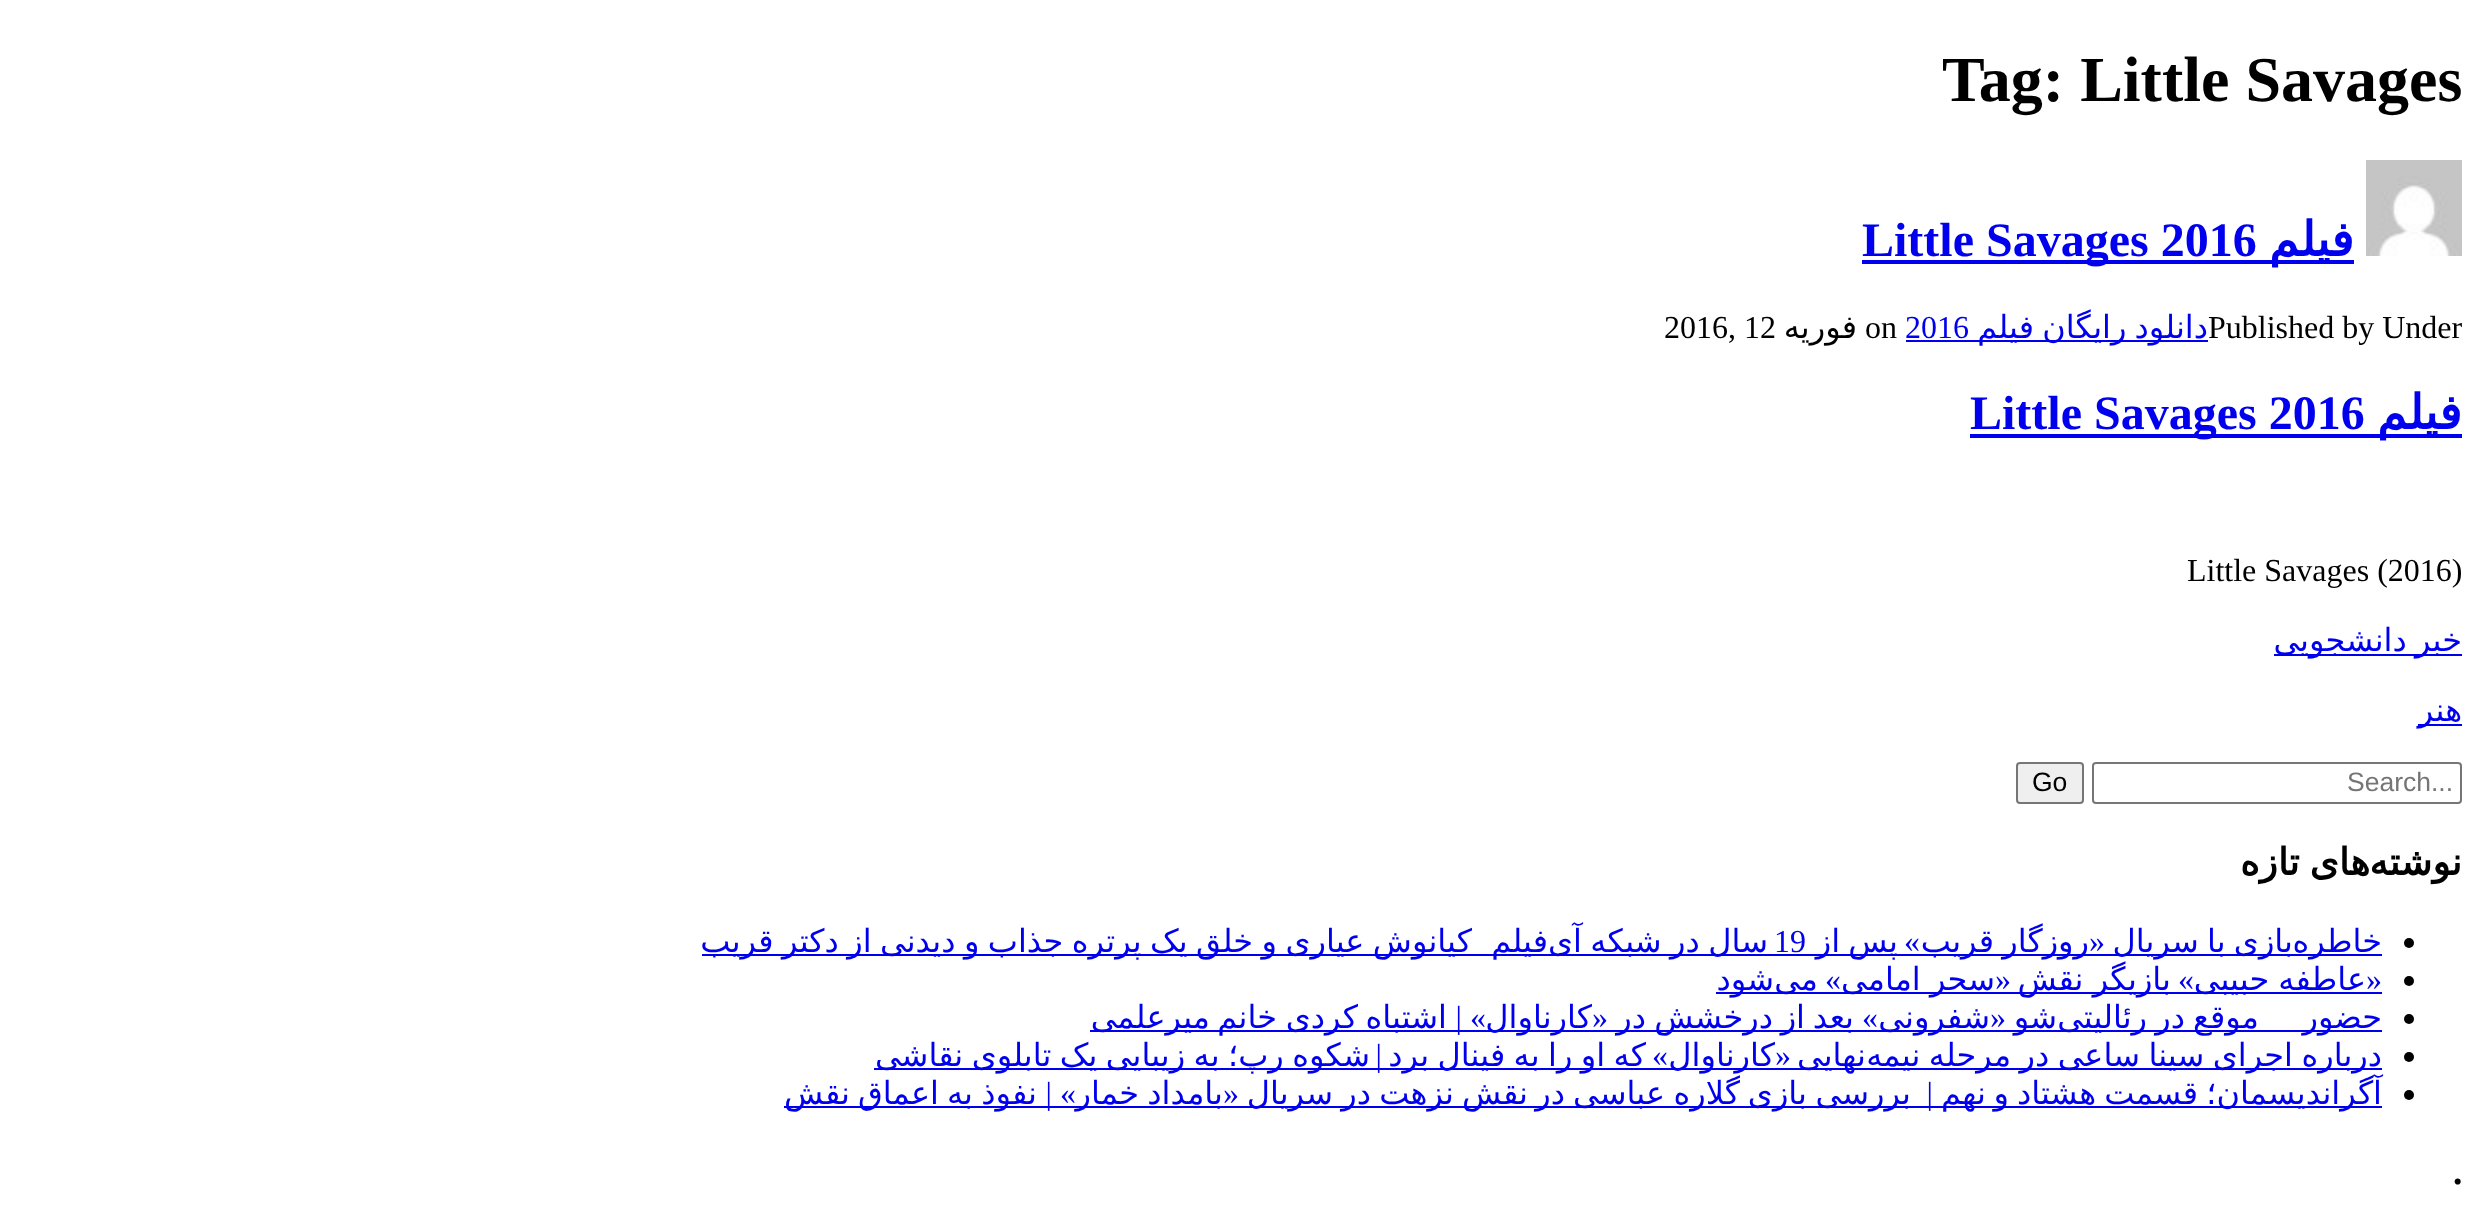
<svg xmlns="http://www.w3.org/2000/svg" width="2478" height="1226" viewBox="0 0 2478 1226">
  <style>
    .t1 { font: bold 64px Liberation Serif; fill: #000; }
    .t2 { font: bold 48px DejaVu Sans; direction: rtl; fill: #00e; }
    .t3 { font: bold 48px Liberation Serif; fill: #00e; }
    .t4 { font: 32px Liberation Serif; fill: #000; }
    .t5 { font: 32px DejaVu Sans; direction: rtl; fill: #00e; }
    .t6 { font: 32px Liberation Serif; fill: #00e; }
    .t7 { font: 32px DejaVu Sans; direction: rtl; fill: #000; }
    .t8 { font: 26.5px Liberation Sans; fill: #757575; }
    .t9 { font: 26.5px Liberation Sans; fill: #000; }
    .t10 { font: bold 37.5px DejaVu Sans; direction: rtl; fill: #000; }
    .t11 { font: 32px Liberation Serif; direction: rtl; fill: #00e; }
    .t12 { font: bold 37.5px Liberation Serif; fill: #000; }
  </style>
  <rect width="100%" height="100%" fill="#fff"/>
  <text x="1942" y="101" class="t1">Tag: Little Savages</text>
  <image x="2366" y="160" width="96" height="96" href="images/1.png"/>
  <rect x="1862" y="260" width="492" height="4" fill="#00e"/>
  <text x="2354" y="256" class="t2">فیلم</text>
  <text x="1862" y="256" class="t3">Little Savages 2016</text>
  <text x="2208" y="338" class="t4">Published by Under</text>
  <rect x="1906" y="340" width="302" height="2" fill="#00e"/>
  <text x="2208" y="338" word-spacing="-2" class="t5">دانلود رایگان فیلم</text>
  <text x="1905" y="338" class="t6">2016</text>
  <text x="1865" y="338" class="t4">on</text>
  <text x="1857" y="338" class="t7">فوریه</text>
  <text x="1664" y="338" class="t4">2016, 12</text>
  <rect x="1970" y="434" width="492" height="4" fill="#00e"/>
  <text x="2462" y="429" class="t2">فیلم</text>
  <text x="1970" y="429" class="t3">Little Savages 2016</text>
  <text x="2187" y="581" class="t4">Little Savages (2016)</text>
  <rect x="2274" y="654" width="188" height="2" fill="#00e"/>
  <text x="2462" y="651" word-spacing="-2" class="t5">خبر دانشجویی</text>
  <rect x="2418" y="724" width="44" height="2" fill="#00e"/>
  <text x="2462" y="721" class="t5">هنر</text>
  <rect x="2093" y="763" width="368" height="40" rx="3" fill="none" stroke="#767676" stroke-width="2"/>
  <text x="2347" y="791" class="t8">Search...</text>
  <rect x="2017" y="763" width="66" height="40" rx="3" fill="#efefef" stroke="#767676" stroke-width="2"/>
  <text x="2032" y="791" class="t9">Go</text>
  <text x="2462" y="875" class="t10">نوشته</text>
  <text x="2370" y="875" word-spacing="-2" class="t10">های تازه</text>
  <circle cx="2409" cy="943" r="5" fill="#000"/>
  <rect x="702" y="954" width="1680" height="2" fill="#00e"/>
  <text x="2382" y="952" class="t5">خاطره</text>
  <text x="2293" y="952" word-spacing="-2" class="t5">بازی با سریال</text>
  <text x="2105" y="952" class="t11">«</text>
  <text x="2089" y="952" word-spacing="-2" class="t5">روزگار قریب</text>
  <text x="1920" y="952" class="t11">»</text>
  <text x="1898" y="952" word-spacing="-2" class="t5">پس از</text>
  <text x="1774" y="952" class="t6">19</text>
  <text x="1768" y="952" word-spacing="-1.75" class="t5">سال در شبکه آی</text>
  <text x="1548" y="952" class="t5">فیلم</text>
  <text x="1472" y="952" word-spacing="-1.75" class="t5">کیانوش عیاری و خلق یک پرتره جذاب و دیدنی از دکتر قریب</text>
  <circle cx="2409" cy="981" r="5" fill="#000"/>
  <text x="2382" y="990" class="t11">«</text>
  <rect x="1716" y="992" width="666" height="2" fill="#00e"/>
  <text x="2366" y="990" word-spacing="-1" class="t5">عاطفه حبیبی</text>
  <text x="2194" y="990" class="t11">»</text>
  <text x="2171" y="990" word-spacing="-1" class="t5">بازیگر نقش</text>
  <text x="2011" y="990" class="t11">«</text>
  <text x="1995" y="990" word-spacing="-1" class="t5">سحر امامی</text>
  <text x="1841" y="990" class="t11">»</text>
  <text x="1818" y="990" class="t5">می</text>
  <text x="1774" y="990" class="t5">شود</text>
  <circle cx="2409" cy="1019" r="5" fill="#000"/>
  <rect x="1090" y="1030" width="1292" height="2" fill="#00e"/>
  <text x="2382" y="1028" class="t5">حضور</text>
  <text x="2259" y="1028" class="t5">موقع</text>
  <text x="2185" y="1028" class="t5">در</text>
  <text x="2147" y="1028" class="t5">رئالیتی</text>
  <text x="2057" y="1028" class="t5">شو</text>
  <text x="2006" y="1028" class="t11">«</text>
  <text x="1990" y="1028" class="t5">شفرونی</text>
  <text x="1878" y="1028" class="t11">»</text>
  <text x="1854" y="1028" class="t5">بعد</text>
  <text x="1805" y="1028" class="t5">از</text>
  <text x="1773" y="1028" class="t5">درخشش</text>
  <text x="1646" y="1028" class="t5">در</text>
  <text x="1608" y="1028" class="t11">«</text>
  <text x="1592" y="1028" class="t5">کارناوال</text>
  <text x="1486" y="1028" class="t11">» |</text>
  <text x="1447" y="1028" class="t5">اشتباه</text>
  <text x="1358" y="1028" class="t5">کردی</text>
  <text x="1277" y="1028" class="t5">خانم</text>
  <text x="1210" y="1028" class="t5">میرعلمی</text>
  <circle cx="2409" cy="1057" r="5" fill="#000"/>
  <rect x="874" y="1068" width="1508" height="2" fill="#00e"/>
  <text x="2382" y="1066" word-spacing="-1.75" class="t5">درباره اجرای سینا ساعی در مرحله نیمه</text>
  <text x="1866" y="1066" class="t5">نهایی</text>
  <text x="1791" y="1066" class="t11">«</text>
  <text x="1775" y="1066" class="t5">کارناوال</text>
  <text x="1646" y="1066" word-spacing="-1.75" class="t5">که او را به فینال برد</text>
  <text x="1668" y="1066" class="t11">»</text>
  <text x="1382" y="1066" class="t11">|</text>
  <text x="1370" y="1066" word-spacing="-1.75" class="t5">شکوه رپ؛ به زیبایی یک تابلوی نقاشی</text>
  <circle cx="2409" cy="1095" r="5" fill="#000"/>
  <rect x="784" y="1106" width="1598" height="2" fill="#00e"/>
  <text x="2382" y="1104" class="t5">آگراندیسمان؛</text>
  <text x="2198" y="1104" class="t5">قسمت</text>
  <text x="2096" y="1104" class="t5">هشتاد</text>
  <text x="2009" y="1104" class="t5">و</text>
  <text x="1986" y="1104" class="t5">نهم</text>
  <text x="1933" y="1104" class="t11">|</text>
  <text x="1911" y="1104" class="t5">بررسی</text>
  <text x="1807" y="1104" class="t5">بازی</text>
  <text x="1740" y="1104" class="t5">گلاره</text>
  <text x="1665" y="1104" class="t5">عباسی</text>
  <text x="1565" y="1104" class="t5">در</text>
  <text x="1528" y="1104" class="t5">نقش</text>
  <text x="1454" y="1104" class="t5">نزهت</text>
  <text x="1371" y="1104" class="t5">در</text>
  <text x="1333" y="1104" class="t5">سریال</text>
  <text x="1239" y="1104" class="t11">«</text>
  <text x="1223" y="1104" class="t5">بامداد</text>
  <text x="1139" y="1104" class="t5">خمار</text>
  <text x="1076" y="1104" class="t11">» |</text>
  <text x="1037" y="1104" class="t5">نفوذ</text>
  <text x="973" y="1104" class="t5">به</text>
  <text x="939" y="1104" class="t5">اعماق</text>
  <text x="850" y="1104" class="t5">نقش</text>
  <text x="2453" y="1184" class="t12">.</text>
</svg>
